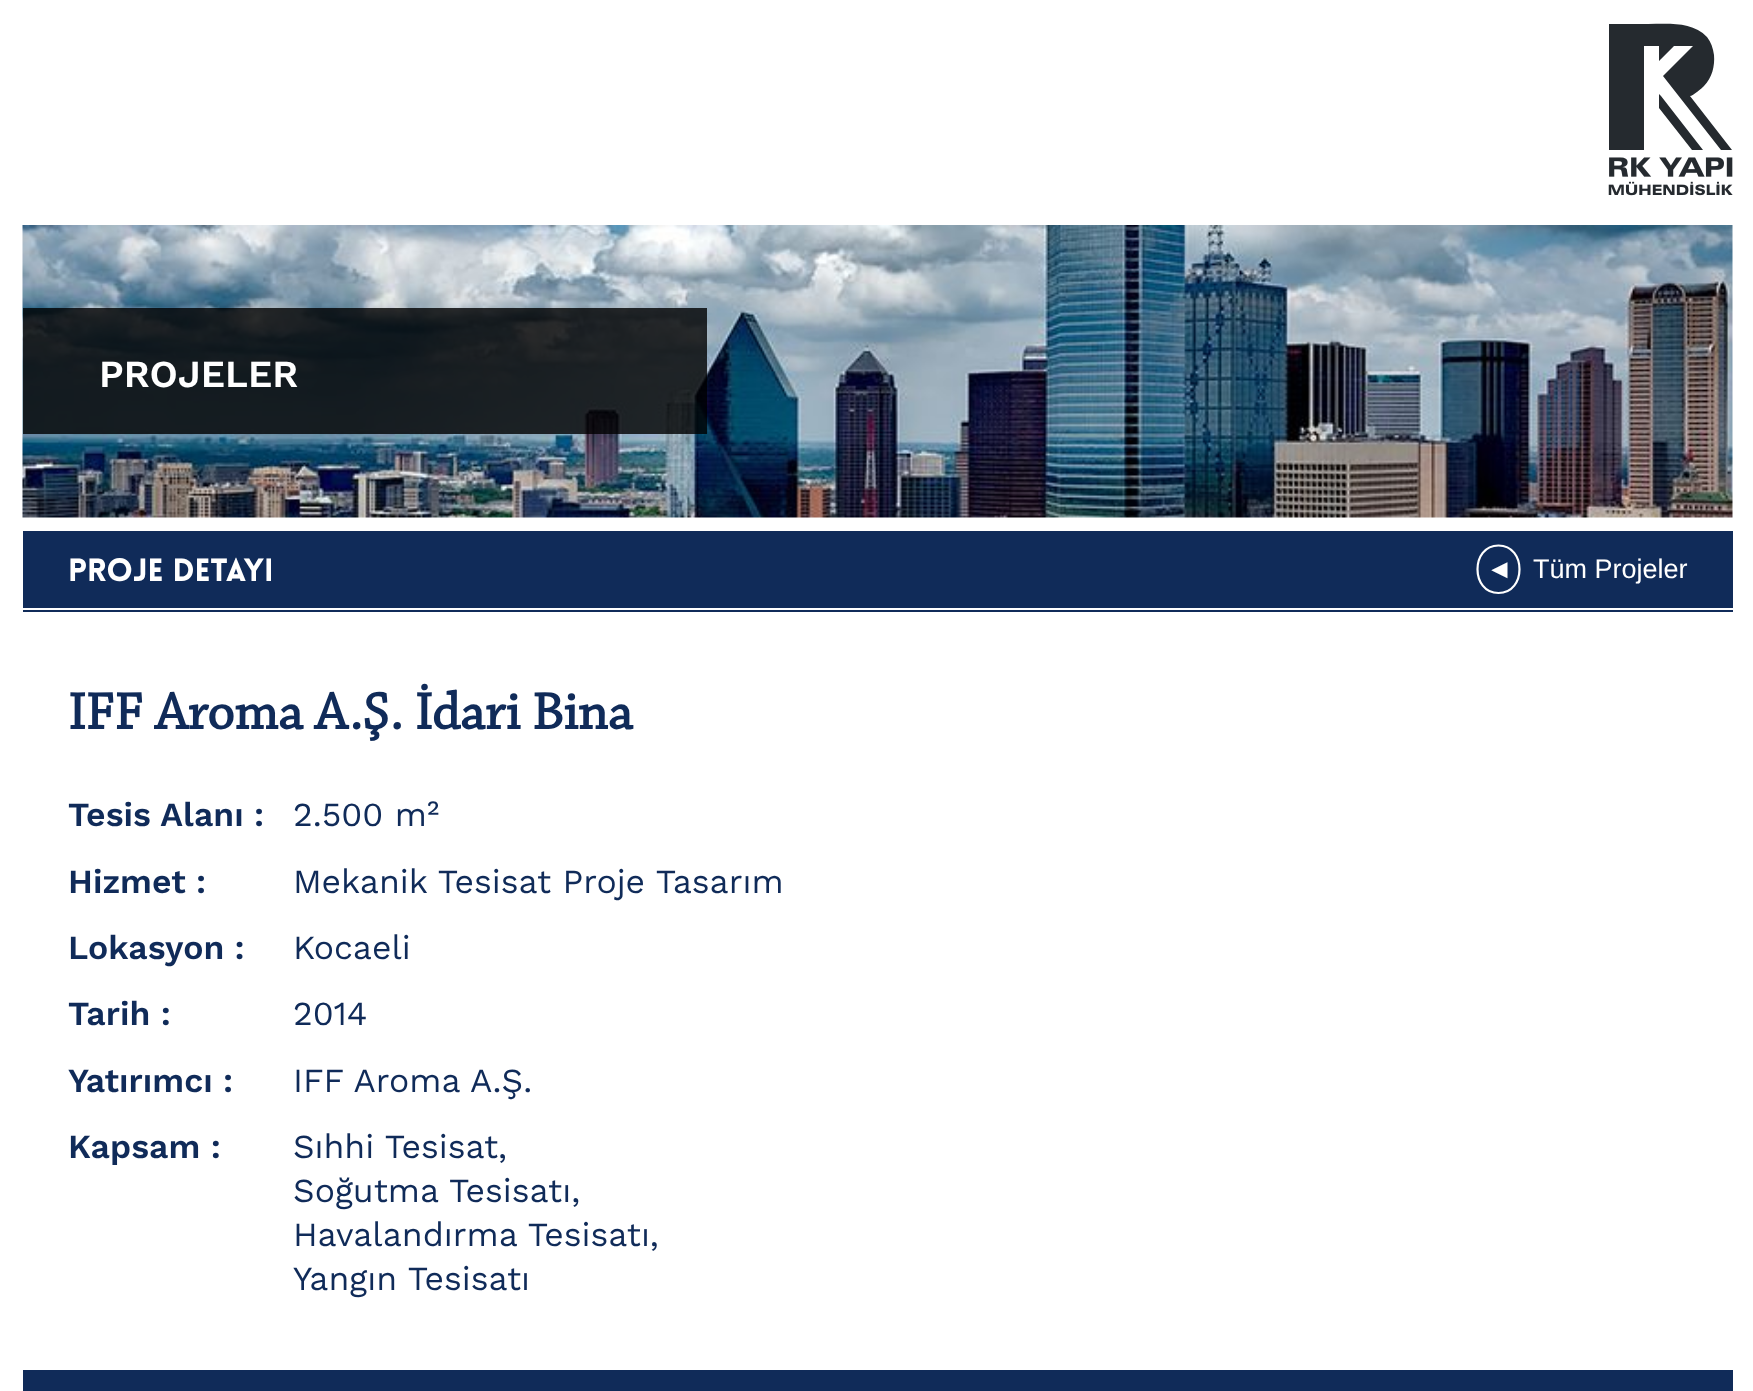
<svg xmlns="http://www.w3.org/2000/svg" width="1753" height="1391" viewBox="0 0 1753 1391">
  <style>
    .t1 { font: 600 38.25px Work Sans; fill: #fff; }
    .t2 { font: 900 31.5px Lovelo; fill: #fff; }
    .t3 { font: 27px Liberation Sans; fill: #fff; }
    .t4 { font: bold 54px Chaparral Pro; fill: #102b59; }
    .t5 { font: 600 33.75px Work Sans; fill: #102b59; }
    .t6 { font: 33.75px Work Sans; fill: #102b59; }
  </style>
  <rect width="100%" height="100%" fill="#fff"/>
  <path d="M1690 96C1693 96 1702 88 1704 86C1712 78 1715 66 1714 55C1713 48 1711 42 1707 37C1692 21 1667 24 1648 24H1609V150H1644V46H1659V61L1674 46H1693L1663 76L1721 150H1732ZM1661 96L1659 94V108L1692 150H1703Z" fill="#252a2f"/>
  <image x="1608" y="157" width="125" height="39" href="images/1.png"/>
  <image x="22" y="225" width="1711" height="293" href="images/2.png"/>
  <rect x="23" y="308" width="684" height="126" fill="#000000cc"/>
  <text x="99" y="387" class="t1">PROJELER</text>
  <rect x="23" y="531" width="1710" height="81" fill="#102b59"/>
  <rect x="23" y="608" width="1710" height="2" fill="#fff"/>
  <text x="68" y="581" class="t2">PROJE DETAYI</text>
  <path d="M1498.5 545.5C1526.5 545.5 1526.5 593 1498.5 593C1470.5 593 1470.5 545.5 1498.5 545.5Z" fill="none" stroke="#fff" stroke-width="2.2"/>
  <text x="1486" y="578" class="t3">◄</text>
  <text x="1533" y="578" class="t3">Tüm Projeler</text>
  <text x="68" y="729" class="t4">IFF Aroma A.Ş. İdari Bina</text>
  <text x="68" y="826" class="t5">Tesis Alanı :</text>
  <text x="293" y="826" class="t6">2.500 m²</text>
  <text x="68" y="893" class="t5">Hizmet :</text>
  <text x="293" y="893" class="t6">Mekanik Tesisat Proje Tasarım</text>
  <text x="68" y="959" class="t5">Lokasyon :</text>
  <text x="293" y="959" class="t6">Kocaeli</text>
  <text x="68" y="1025" class="t5">Tarih :</text>
  <text x="293" y="1025" class="t6">2014</text>
  <text x="68" y="1092" class="t5">Yatırımcı :</text>
  <text x="293" y="1092" class="t6">IFF Aroma A.Ş.</text>
  <text x="68" y="1158" class="t5">Kapsam :</text>
  <text x="293" y="1158" class="t6">Sıhhi Tesisat,</text>
  <text x="293" y="1202" class="t6">Soğutma Tesisatı,</text>
  <text x="293" y="1246" class="t6">Havalandırma Tesisatı,</text>
  <text x="293" y="1290" class="t6">Yangın Tesisatı</text>
  <rect x="23" y="1370" width="1710" height="21" fill="#102b59"/>
</svg>
